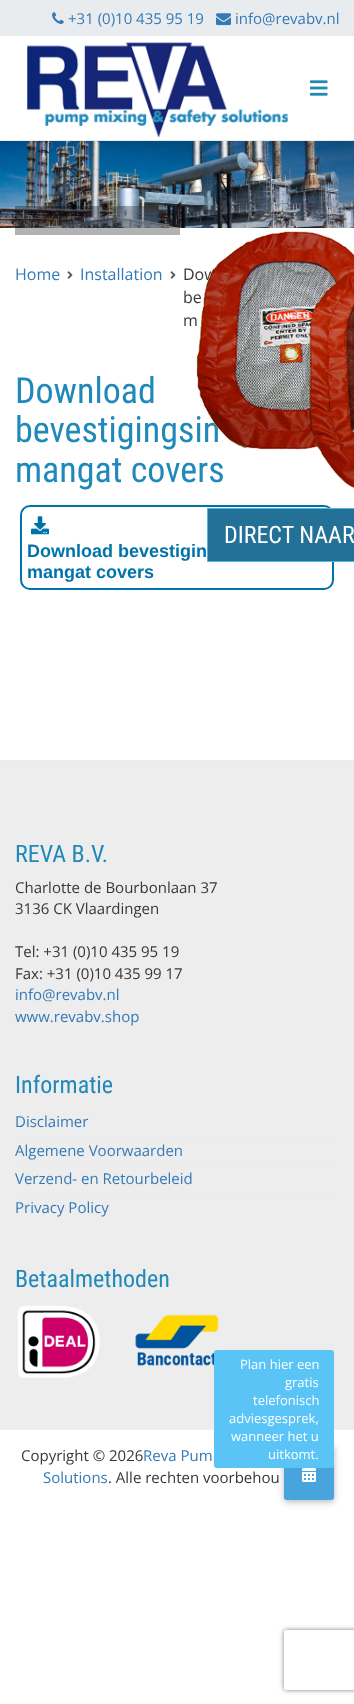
<svg xmlns="http://www.w3.org/2000/svg" width="354" height="1704" viewBox="0 0 354 1704">
  <style>
    .t1 { font: 15px Open Sans; fill: #337ab7; }
    .t2 { font: 16px Open Sans; fill: #337ab7; }
    .t3 { font: 16px Open Sans; fill: #373737; }
    .t4 { font: 36px Roboto Condensed; fill: #2089ba; }
    .t5 { font: bold 18px Liberation Sans; fill: #0073aa; }
    .t6 { font: 24px Roboto Condensed; fill: #fff; }
    .t7 { font: 24px Roboto Condensed; fill: #2089ba; }
    .t8 { font: 15px Open Sans; fill: #373737; }
    .t9 { font: 13px Open Sans; fill: #fff; }
  </style>
  <defs>
    <clipPath id="clip1"><path d="M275 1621H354V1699H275ZM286 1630H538C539 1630 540 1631 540 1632V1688C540 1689 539 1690 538 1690H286C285 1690 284 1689 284 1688V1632C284 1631 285 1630 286 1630Z" clip-rule="evenodd"/></clipPath>
  </defs>
  <rect width="100%" height="100%" fill="#fff"/>
  <rect x="0" y="140" width="354" height="1" fill="#e9ecef"/>
  <rect x="0" y="0" width="354" height="36" fill="#e9ecef"/>
  <image x="52" y="12" width="12" height="12" href="images/1.png"/>
  <text x="68" y="24" class="t1">+31 (0)10 435 95 19</text>
  <image x="216" y="13" width="15" height="13" href="images/2.png"/>
  <text x="235" y="24" class="t1">info@revabv.nl</text>
  <image x="27" y="42" width="261" height="96" href="images/3.png"/>
  <image x="310" y="80" width="18" height="16" href="images/4.png"/>
  <text x="15" y="280" class="t2">Home</text>
  <image x="67" y="271" width="6" height="8" href="images/5.png"/>
  <text x="80" y="280" class="t2">Installation</text>
  <image x="170" y="271" width="6" height="8" href="images/5.png"/>
  <text x="183" y="280" class="t3">Dow</text>
  <text x="183" y="303" class="t3">be</text>
  <text x="183" y="326" class="t3">m</text>
  <text x="15" y="403" class="t4">Download</text>
  <text x="15" y="442" class="t4">bevestigingsin</text>
  <text x="15" y="482" class="t4">mangat covers</text>
  <rect x="21" y="506" width="312" height="83" rx="9" fill="none" stroke="#0073aa" stroke-width="2"/>
  <image x="31" y="516" width="18" height="19" href="images/6.png"/>
  <text x="27" y="557" class="t5">Download bevestigin</text>
  <text x="27" y="578" class="t5">mangat covers</text>
  <image x="0" y="141" width="354" height="87" href="images/7.png"/>
  <rect x="15" y="206" width="165" height="29" fill="#0000004d"/>
  <image x="196" y="231" width="158" height="258" href="images/8.png"/>
  <rect x="207.5" y="508.5" width="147" height="53" fill="#237196" stroke="#53b5e3"/>
  <text x="224" y="543" class="t6">DIRECT NAAR</text>
  <rect x="0" y="761" width="354" height="669" fill="#eeeded"/>
  <rect x="0" y="760" width="354" height="1" fill="#e9ecef"/>
  <text x="15" y="862" class="t7">REVA B.V.</text>
  <text x="15" y="893" class="t8">Charlotte de Bourbonlaan 37</text>
  <text x="15" y="914" class="t8">3136 CK Vlaardingen</text>
  <text x="15" y="957" class="t8">Tel: +31 (0)10 435 95 19</text>
  <text x="15" y="979" class="t8">Fax: +31 (0)10 435 99 17</text>
  <text x="15" y="1000" class="t1">info@revabv.nl</text>
  <text x="15" y="1022" class="t1">www.revabv.shop</text>
  <text x="15" y="1093" class="t7">Informatie</text>
  <rect x="15" y="1136" width="324" height="1" fill="#e9ecef"/>
  <text x="15" y="1127" class="t1">Disclaimer</text>
  <rect x="15" y="1164" width="324" height="1" fill="#e9ecef"/>
  <text x="15" y="1156" class="t1">Algemene Voorwaarden</text>
  <rect x="15" y="1193" width="324" height="1" fill="#e9ecef"/>
  <text x="15" y="1184" class="t1">Verzend- en Retourbeleid</text>
  <text x="15" y="1213" class="t1">Privacy Policy</text>
  <text x="15" y="1287" class="t7">Betaalmethoden</text>
  <image x="17" y="1305" width="83" height="73" href="images/9.png"/>
  <image x="135" y="1314" width="84" height="52" href="images/10.png"/>
  <text x="21" y="1461" class="t8">Copyright © 2026</text>
  <text x="143" y="1461" class="t1">Reva Pum</text>
  <text x="43" y="1483" class="t1">Solutions</text>
  <text x="108" y="1483" class="t8">. Alle rechten voorbehou</text>
  <rect x="284" y="1446" width="50" height="56" rx="3" fill="#0000001f" filter="blur(5px)"/>
  <rect x="284" y="1446" width="50" height="56" rx="3" fill="#00000029" filter="blur(2.5px)"/>
  <rect x="284" y="1444" width="50" height="56" rx="3" fill="#48a4dc"/>
  <rect x="214" y="1350" width="120" height="118" rx="3" fill="#5bc4f6"/>
  <text x="240" y="1369" class="t9">Plan hier een</text>
  <text x="285" y="1387" class="t9">gratis</text>
  <text x="253" y="1405" class="t9">telefonisch</text>
  <text x="229" y="1423" class="t9">adviesgesprek,</text>
  <text x="231" y="1441" class="t9">wanneer het u</text>
  <text x="268" y="1459" class="t9">uitkomt.</text>
  <image x="302" y="1468" width="14" height="14" href="images/11.png"/>
  <g clip-path="url(#clip1)">
    <rect x="284" y="1630" width="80" height="60" rx="2" fill="#808080" filter="blur(2.5px)"/>
  </g>
</svg>
